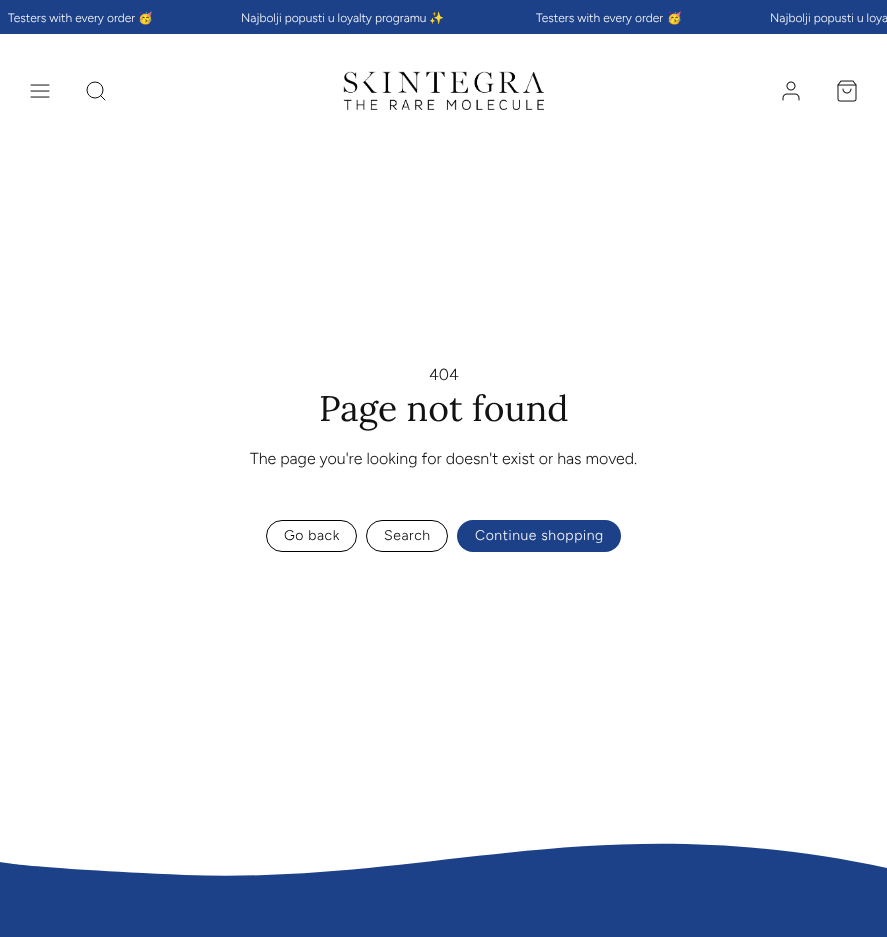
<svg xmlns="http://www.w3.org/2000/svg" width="887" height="937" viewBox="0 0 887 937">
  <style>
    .t1 { font: 300 12px Figtree; fill: #fff; }
    .t2 { font: 12px Noto Color Emoji; fill: #fff; }
    .t3 { font: 300 16px Figtree; fill: #111; }
    .t4 { font: 35.5px Lora; fill: #111; }
    .t5 { font: 300 14px Figtree; letter-spacing: 0.6px; fill: #000; }
    .t6 { font: 300 14px Figtree; letter-spacing: 0.6px; fill: #fff; }
  </style>
  <rect width="100%" height="100%" fill="#fff"/>
  <rect x="0" y="0" width="887" height="34" fill="#1d4189"/>
  <text x="8" y="22" class="t1">Testers with every order</text>
  <text x="138" y="22" class="t2">🥳</text>
  <text x="241" y="22" class="t1">Najbolji popusti u loyalty programu</text>
  <text x="429" y="22" class="t2">✨</text>
  <text x="536" y="22" class="t1">Testers with every order</text>
  <text x="667" y="22" class="t2">🥳</text>
  <text x="770" y="22" class="t1">Najbolji popusti u loya</text>
  <image x="30" y="84" width="20" height="14" href="images/1.png"/>
  <circle cx="95" cy="90" r="8" fill="none" stroke="#111"/>
  <path d="M105 100L100.5 95.5" fill="none" stroke="#111" stroke-linecap="round" stroke-linejoin="round"/>
  <image x="343" y="71" width="201" height="39" href="images/2.png"/>
  <image x="782" y="81" width="18" height="20" href="images/3.png"/>
  <image x="837" y="80" width="20" height="22" href="images/4.png"/>
  <text x="429" y="380" class="t3">404</text>
  <text x="319" y="421" class="t4">Page not found</text>
  <text x="250" y="464" class="t3">The page you're looking for doesn't exist or has moved.</text>
  <rect x="266.5" y="520.5" width="90" height="31" rx="15.5" fill="none" stroke="#000"/>
  <text x="284" y="540" class="t5">Go back</text>
  <rect x="366.5" y="520.5" width="81" height="31" rx="15.5" fill="none" stroke="#000"/>
  <text x="384" y="540" class="t5">Search</text>
  <rect x="457" y="520" width="164" height="32" rx="16" fill="#1d4189"/>
  <text x="475" y="540" class="t6">Continue shopping</text>
  <path d="M185 875C25 868 0 862 0 862V887H887V868C596 806 431 884 185 875Z" fill="#1d4189"/>
  <rect x="0" y="887" width="887" height="50" fill="#1d4189"/>
</svg>
